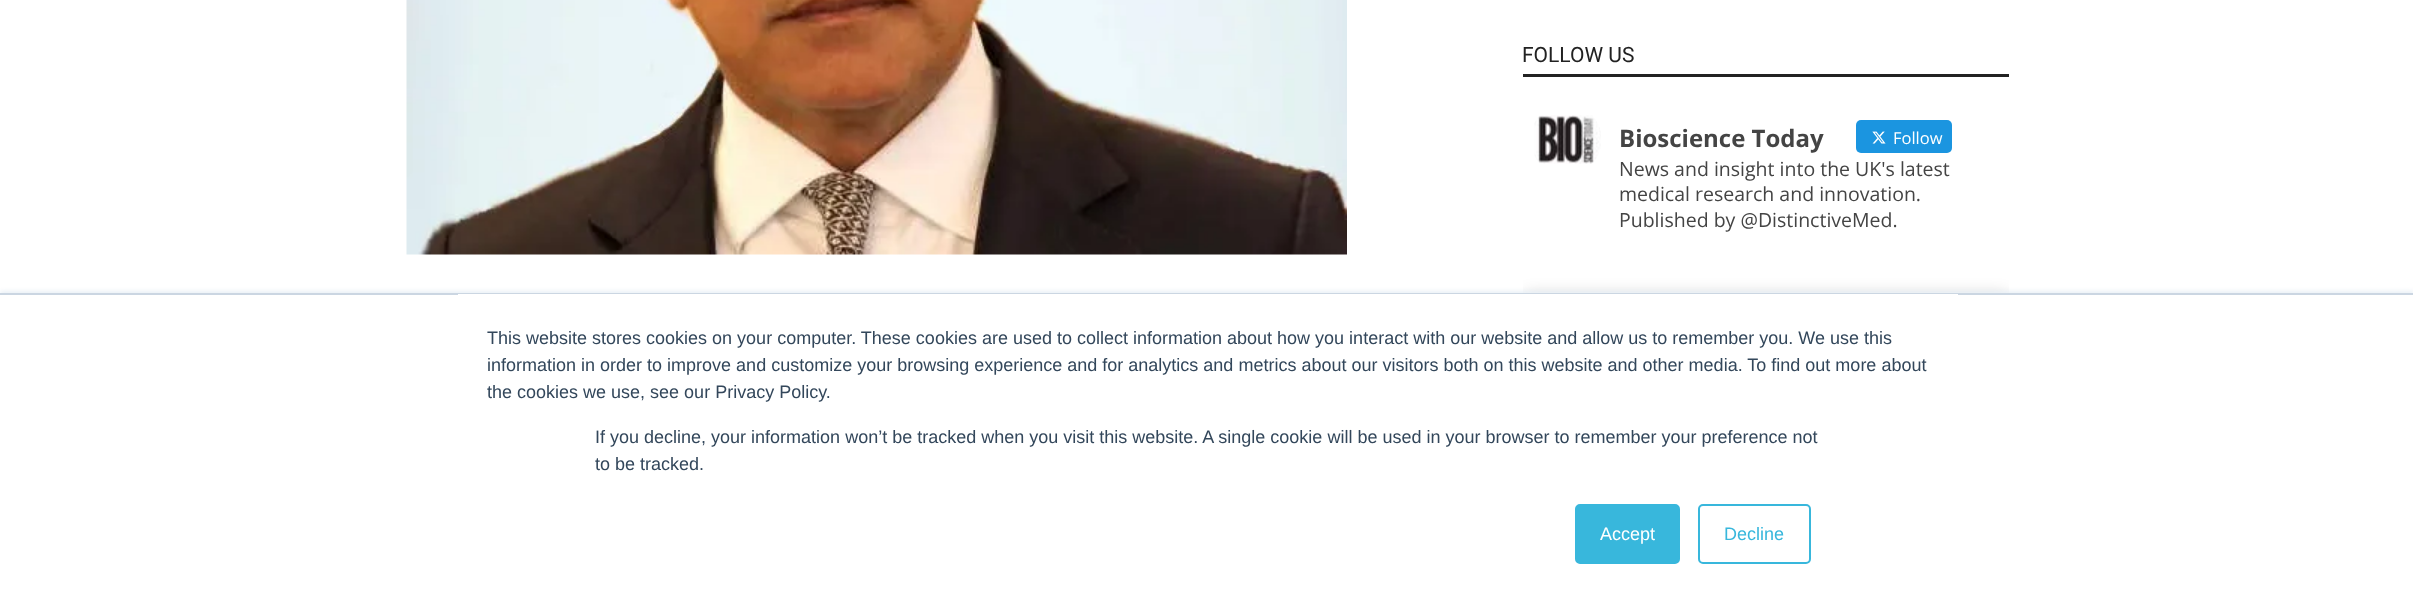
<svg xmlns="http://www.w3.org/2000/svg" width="2413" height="603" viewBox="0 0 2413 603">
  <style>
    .t1 { font: 21px Roboto; fill: #222; }
    .t2 { font: bold 24px Open Sans; fill: #444; }
    .t3 { font: 16.5px Open Sans; fill: #fff; }
    .t4 { font: 19.5px Open Sans; fill: #444; }
    .t5 { font: 18px Liberation Sans; fill: #33475b; }
    .t6 { font: 18px Liberation Sans; fill: #fff; }
    .t7 { font: 18px Liberation Sans; fill: #38b7dc; }
  </style>
  <defs>
    <clipPath id="clip1"><rect x="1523" y="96" width="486" height="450"/></clipPath>
  </defs>
  <rect width="100%" height="100%" fill="#fff"/>
  <image x="406" y="0" width="941" height="255" href="images/1.png"/>
  <rect x="1523" y="74" width="486" height="3" fill="#222"/>
  <text x="1522" y="62" class="t1">FOLLOW US</text>
  <image x="1534" y="115" width="67" height="49" href="images/2.png"/>
  <text x="1619" y="147" class="t2">Bioscience Today</text>
  <rect x="1856" y="120" width="96" height="33" rx="5" fill="#1b95e0"/>
  <image x="1872" y="131" width="14" height="13" href="images/3.png"/>
  <text x="1893" y="144" class="t3">Follow</text>
  <text x="1619" y="176" class="t4">News and insight into the UK's latest</text>
  <text x="1619" y="201" class="t4">medical research and innovation.</text>
  <text x="1619" y="227" class="t4">Published by @DistinctiveMed.</text>
  <g clip-path="url(#clip1)">
    <rect x="1523" y="293" width="486" height="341" rx="8" fill="#00000026" filter="blur(7.5px)"/>
  </g>
  <rect x="0" y="291" width="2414" height="311" fill="#eaf0f6" filter="blur(2px)"/>
  <rect x="0" y="295" width="2413" height="308" fill="#fff"/>
  <rect x="0" y="293" width="2413" height="2" fill="#cbd6e2"/>
  <rect x="458" y="294" width="1500" height="1" fill="#fff"/>
  <text x="487" y="344" class="t5">This website stores cookies on your computer. These cookies are used to collect information about how you interact with our website and allow us to remember you. We use this</text>
  <text x="487" y="371" class="t5">information in order to improve and customize your browsing experience and for analytics and metrics about our visitors both on this website and other media. To find out more about</text>
  <text x="487" y="398" class="t5">the cookies we use, see our Privacy Policy.</text>
  <text x="595" y="443" class="t5">If you decline, your information won’t be tracked when you visit this website. A single cookie will be used in your browser to remember your preference not</text>
  <text x="595" y="470" class="t5">to be tracked.</text>
  <rect x="1576" y="505" width="103" height="58" rx="4" fill="#38b7dc" stroke="#38b7dc" stroke-width="2"/>
  <text x="1600" y="540" class="t6">Accept</text>
  <rect x="1699" y="505" width="111" height="58" rx="4" fill="none" stroke="#38b7dc" stroke-width="2"/>
  <text x="1724" y="540" class="t7">Decline</text>
</svg>
